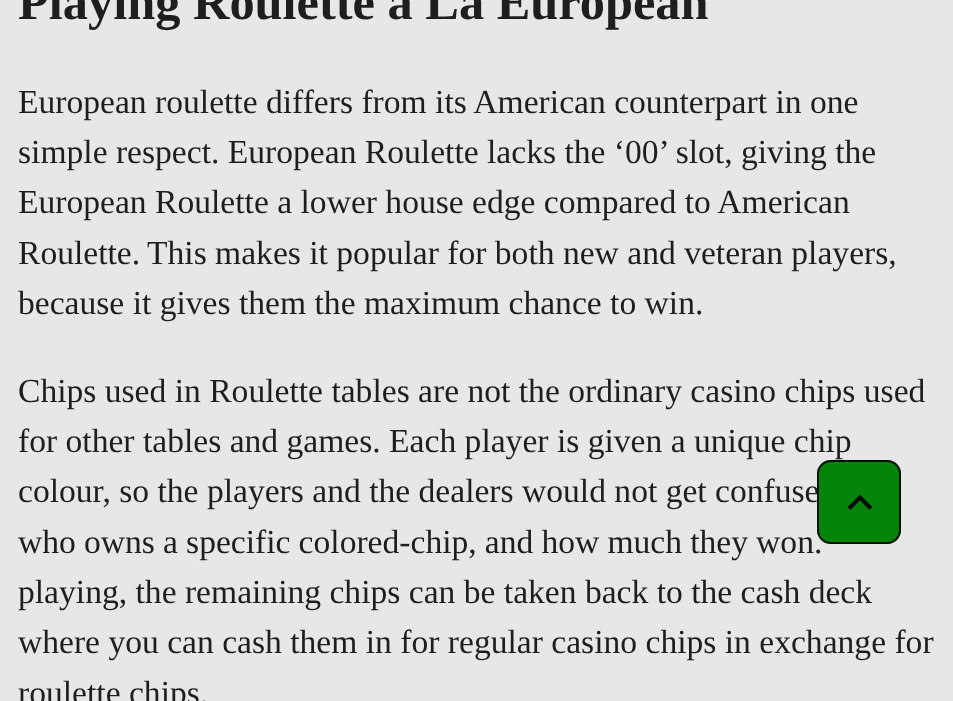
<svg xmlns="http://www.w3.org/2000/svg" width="953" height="701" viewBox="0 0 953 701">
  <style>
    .t1 { font: bold 50.4px Liberation Serif; fill: #1e1e1e; }
    .t2 { font: 33.6px Liberation Serif; fill: #1e1e1e; }
  </style>
  <rect width="100%" height="100%" fill="#e7e7e7"/>
  <text x="18" y="19" class="t1">Playing Roulette a La European</text>
  <text x="18" y="113" class="t2">European roulette differs from its American counterpart in one</text>
  <text x="18" y="163" class="t2">simple respect. European Roulette lacks the ‘00’ slot, giving the</text>
  <text x="18" y="213" class="t2">European Roulette a lower house edge compared to American</text>
  <text x="18" y="264" class="t2">Roulette.</text>
  <text x="147" y="264" class="t2">This makes it popular for both new and veteran players,</text>
  <text x="18" y="314" class="t2">because it gives them the maximum chance to win.</text>
  <text x="18" y="402" class="t2">Chips used in Roulette tables are not the ordinary casino chips used</text>
  <text x="18" y="452" class="t2">for other tables and games. Each player is given a unique chip</text>
  <text x="18" y="502" class="t2">colour, so the players and the dealers would not get confuse</text>
  <text x="18" y="553" word-spacing="-0.25" class="t2">who owns a specific colored-chip, and how much they won.</text>
  <text x="18" y="603" class="t2">playing, the remaining chips can be taken back to the cash deck</text>
  <text x="18" y="653" class="t2">where you can cash them in for regular casino chips in exchange for</text>
  <text x="18" y="704" class="t2">roulette chips.</text>
  <rect x="817" y="460" width="84" height="84" rx="14" fill="#05840a"/>
  <rect x="818" y="461" width="82" height="82" rx="13" fill="none" stroke="#000000de" stroke-width="2"/>
  <path d="M850.5 510L860 500.5L869.5 510L872.5 507L860 494.5L847.5 507Z" fill="#011101"/>
</svg>
